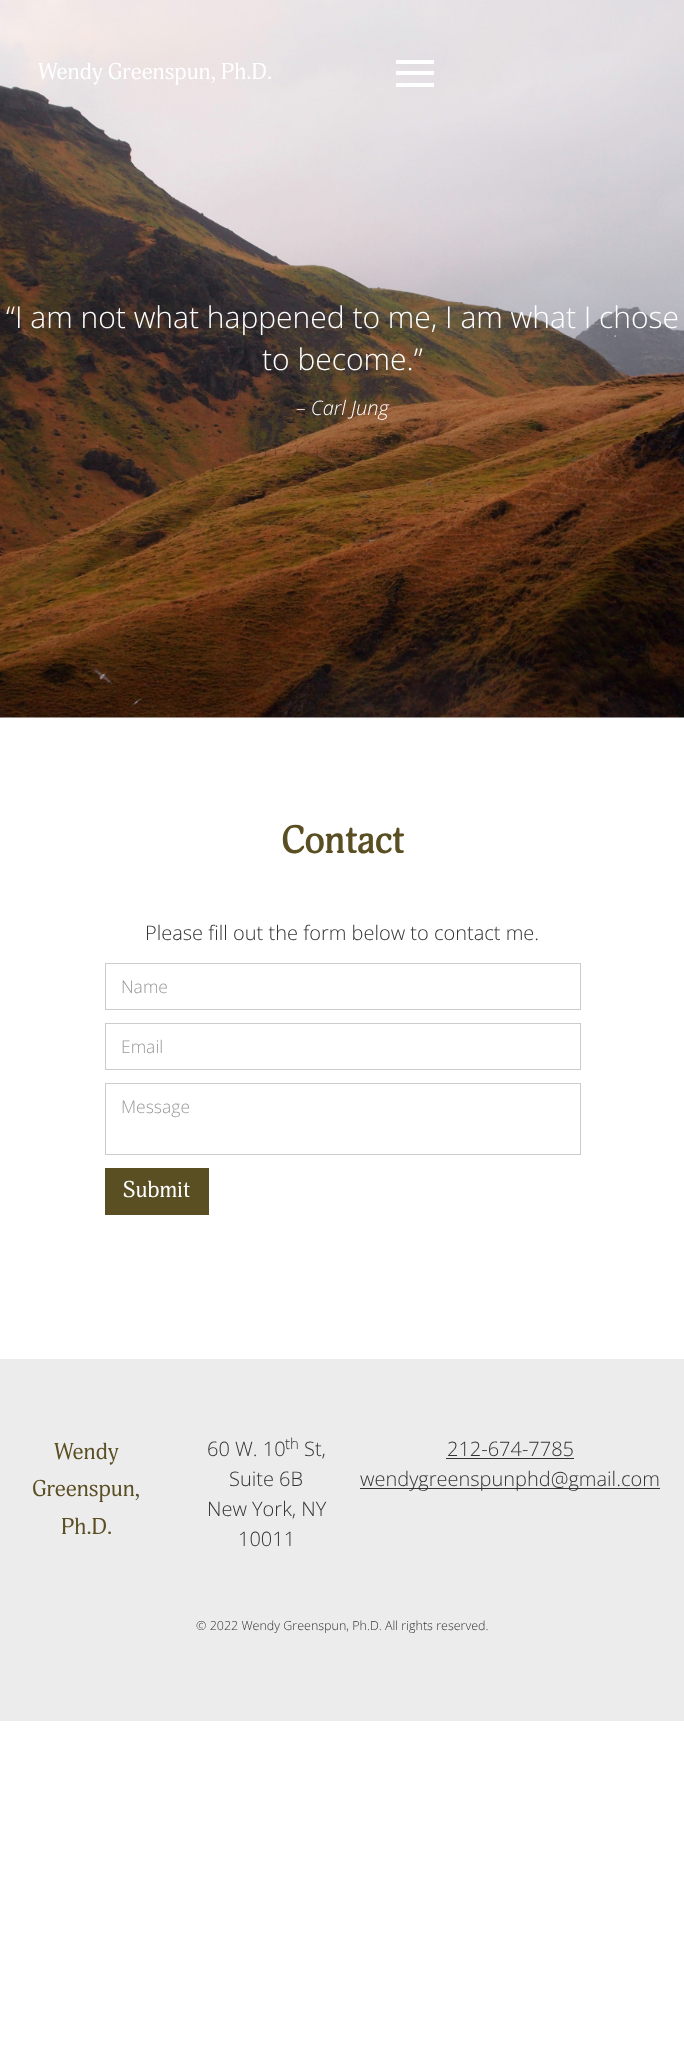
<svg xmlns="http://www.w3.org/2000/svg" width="684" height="2050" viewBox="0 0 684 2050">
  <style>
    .t1 { font: 22.5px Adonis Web; fill: #fff; }
    .t2 { font: 300 30px Open Sans; fill: #fff; }
    .t3 { font: italic 300 20px Open Sans; fill: #fff; }
    .t4 { font: bold 37.5px Adonis Web; fill: #5a4e23; }
    .t5 { font: 300 20px Open Sans; fill: #333; }
    .t6 { font: 300 17.5px Open Sans; fill: #999; }
    .t7 { font: 22.5px Adonis Web; fill: #5a4e23; }
    .t8 { font: 300 15px Open Sans; fill: #333; }
    .t9 { font: 300 12.5px Open Sans; fill: #333; }
  </style>
  <rect width="100%" height="100%" fill="#fff"/>
  <image x="0" y="0" width="684" height="718" href="images/1.png"/>
  <text x="38" y="79" class="t1">Wendy Greenspun, Ph.D.</text>
  <rect x="396" y="60" width="38" height="4" fill="#fff"/>
  <rect x="396" y="71" width="38" height="4" fill="#fff"/>
  <rect x="396" y="83" width="38" height="4" fill="#fff"/>
  <text x="6" y="328" class="t2">“I am not what happened to me, I am what I chose</text>
  <text x="262" y="370" class="t2">to become.”</text>
  <text x="296" y="415" class="t3">– Carl Jung</text>
  <text x="281" y="853" class="t4">Contact</text>
  <text x="145" y="940" class="t5">Please fill out the form below to contact me.</text>
  <rect x="105.5" y="963.5" width="475" height="46" fill="none" stroke="#ccc"/>
  <text x="121" y="993" class="t6">Name</text>
  <rect x="105.5" y="1023.5" width="475" height="46" fill="none" stroke="#ccc"/>
  <text x="121" y="1053" class="t6">Email</text>
  <rect x="105.5" y="1083.5" width="475" height="71" fill="none" stroke="#ccc"/>
  <text x="121" y="1113" class="t6">Message</text>
  <rect x="105" y="1168" width="104" height="47" fill="#5a4e23"/>
  <text x="123" y="1197" class="t1">Submit</text>
  <rect x="0" y="1359" width="684" height="362" fill="#ececec"/>
  <text x="54" y="1459" class="t7">Wendy</text>
  <text x="32" y="1496" class="t7">Greenspun,</text>
  <text x="61" y="1534" class="t7">Ph.D.</text>
  <text x="207" y="1456" class="t5">60 W. 10</text>
  <text x="285" y="1449" class="t8">th</text>
  <text x="304" y="1456" class="t5">St,</text>
  <text x="229" y="1486" class="t5">Suite 6B</text>
  <text x="207" y="1516" class="t5">New York, NY</text>
  <text x="238" y="1546" class="t5">10011</text>
  <text x="447" y="1456" class="t5">212-674-7785</text>
  <rect x="446" y="1458" width="128" height="1" fill="#333"/>
  <rect x="360" y="1488" width="300" height="1" fill="#333"/>
  <text x="360" y="1486" class="t5">wendygreenspunphd@gmail.com</text>
  <text x="196" y="1630" class="t9">© 2022 Wendy Greenspun, Ph.D. All rights reserved.</text>
</svg>
